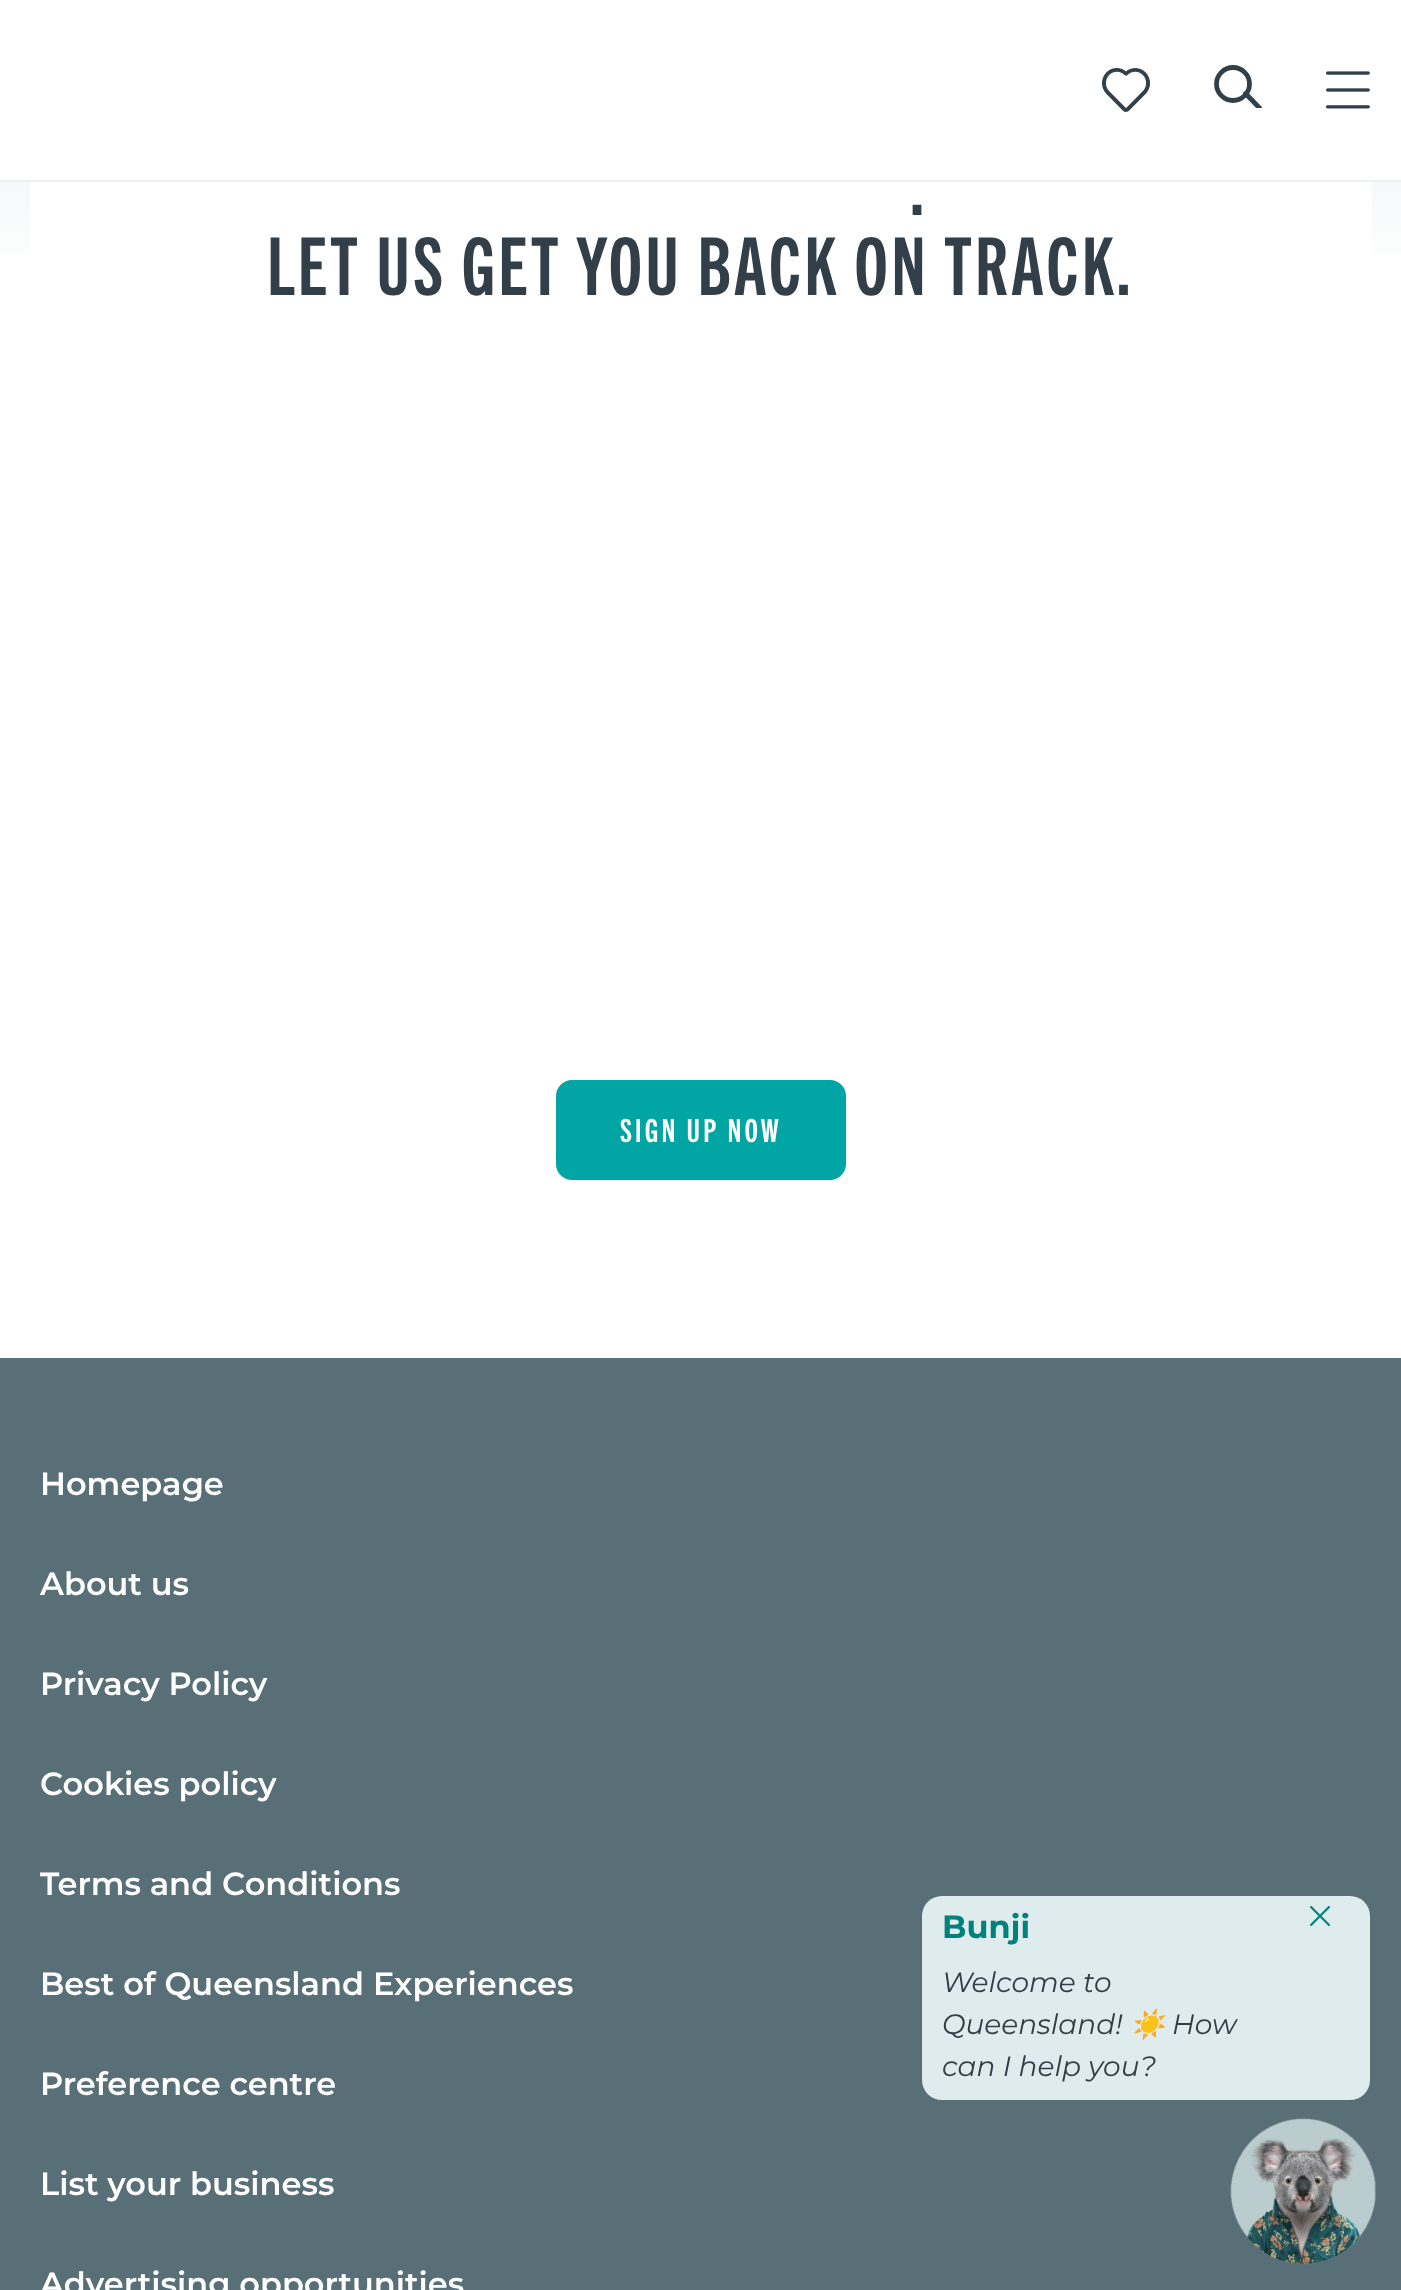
<svg xmlns="http://www.w3.org/2000/svg" width="1401" height="2290" viewBox="0 0 1401 2290">
  <style>
    .t1 { font: bold 80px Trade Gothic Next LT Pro; letter-spacing: 3.2px; fill: #333f48; }
    .t2 { font: bold 32px Trade Gothic Next LT Pro; letter-spacing: 3.2px; fill: #fff; }
    .t3 { font: 600 32px Montserrat; fill: #fff; }
    .t4 { font: bold 32px Montserrat; fill: #00817d; }
    .t5 { font: italic 28px Montserrat; fill: #333f48; }
    .t6 { font: italic 28px Noto Color Emoji; fill: #333f48; }
  </style>
  <defs>
    <clipPath id="clip1"><rect x="1214" y="60" width="48" height="48"/></clipPath>
    <linearGradient id="g1" gradientUnits="userSpaceOnUse" x1="701" y1="-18" x2="701" y2="282"><stop offset="0" stop-color="#e4e9ec"/><stop offset="1" stop-color="#fff"/></linearGradient>
  </defs>
  <rect width="100%" height="100%" fill="#fff"/>
  <rect x="0" y="180" width="1401" height="2" fill="#edf1f3"/>
  <image x="1102" y="68" width="48" height="44" href="images/1.png"/>
  <circle cx="1233" cy="84" r="16.5" fill="none" stroke="#333f48" stroke-width="4.8"/>
  <g clip-path="url(#clip1)">
    <path d="M1245.5 93.5L1259.5 108" fill="none" stroke="#333f48" stroke-width="4.8" stroke-linecap="round"/>
  </g>
  <image x="1326" y="71" width="44" height="38" href="images/2.png"/>
  <rect x="0" y="182" width="1401" height="72" fill="url(#g1)"/>
  <rect x="30" y="182" width="1342" height="72" fill="#fff"/>
  <text x="910" y="215" class="t1">.</text>
  <text x="267" y="295" class="t1">LET US GET YOU BACK ON TRACK.</text>
  <rect x="558" y="1082" width="286" height="96" rx="14" fill="#00a5a4" stroke="#00a5a4" stroke-width="4"/>
  <text x="620" y="1142" class="t2">SIGN UP NOW</text>
  <rect x="0" y="1358" width="1401" height="932" fill="#586f78"/>
  <text x="40" y="1495" class="t3">Homepage</text>
  <text x="40" y="1595" class="t3">About us</text>
  <text x="40" y="1695" class="t3">Privacy Policy</text>
  <text x="40" y="1795" class="t3">Cookies policy</text>
  <text x="40" y="1895" class="t3">Terms and Conditions</text>
  <text x="40" y="1995" class="t3">Best of Queensland Experiences</text>
  <text x="40" y="2095" class="t3">Preference centre</text>
  <text x="40" y="2195" class="t3">List your business</text>
  <text x="40" y="2295" class="t3">Advertising opportunities</text>
  <rect x="922" y="1896" width="448" height="204" rx="20" fill="#dfeced"/>
  <text x="942" y="1938" class="t4">Bunji</text>
  <text x="942" y="1992" class="t5">Welcome to</text>
  <text x="942" y="2034" class="t5">Queensland!</text>
  <text x="1130" y="2034" class="t6">☀️</text>
  <text x="1172" y="2034" class="t5">How</text>
  <text x="942" y="2076" class="t5">can I help you?</text>
  <image x="1310" y="1906" width="20" height="20" href="images/3.png"/>
  <image x="1228" y="2115" width="148" height="150" href="images/4.png"/>
</svg>
